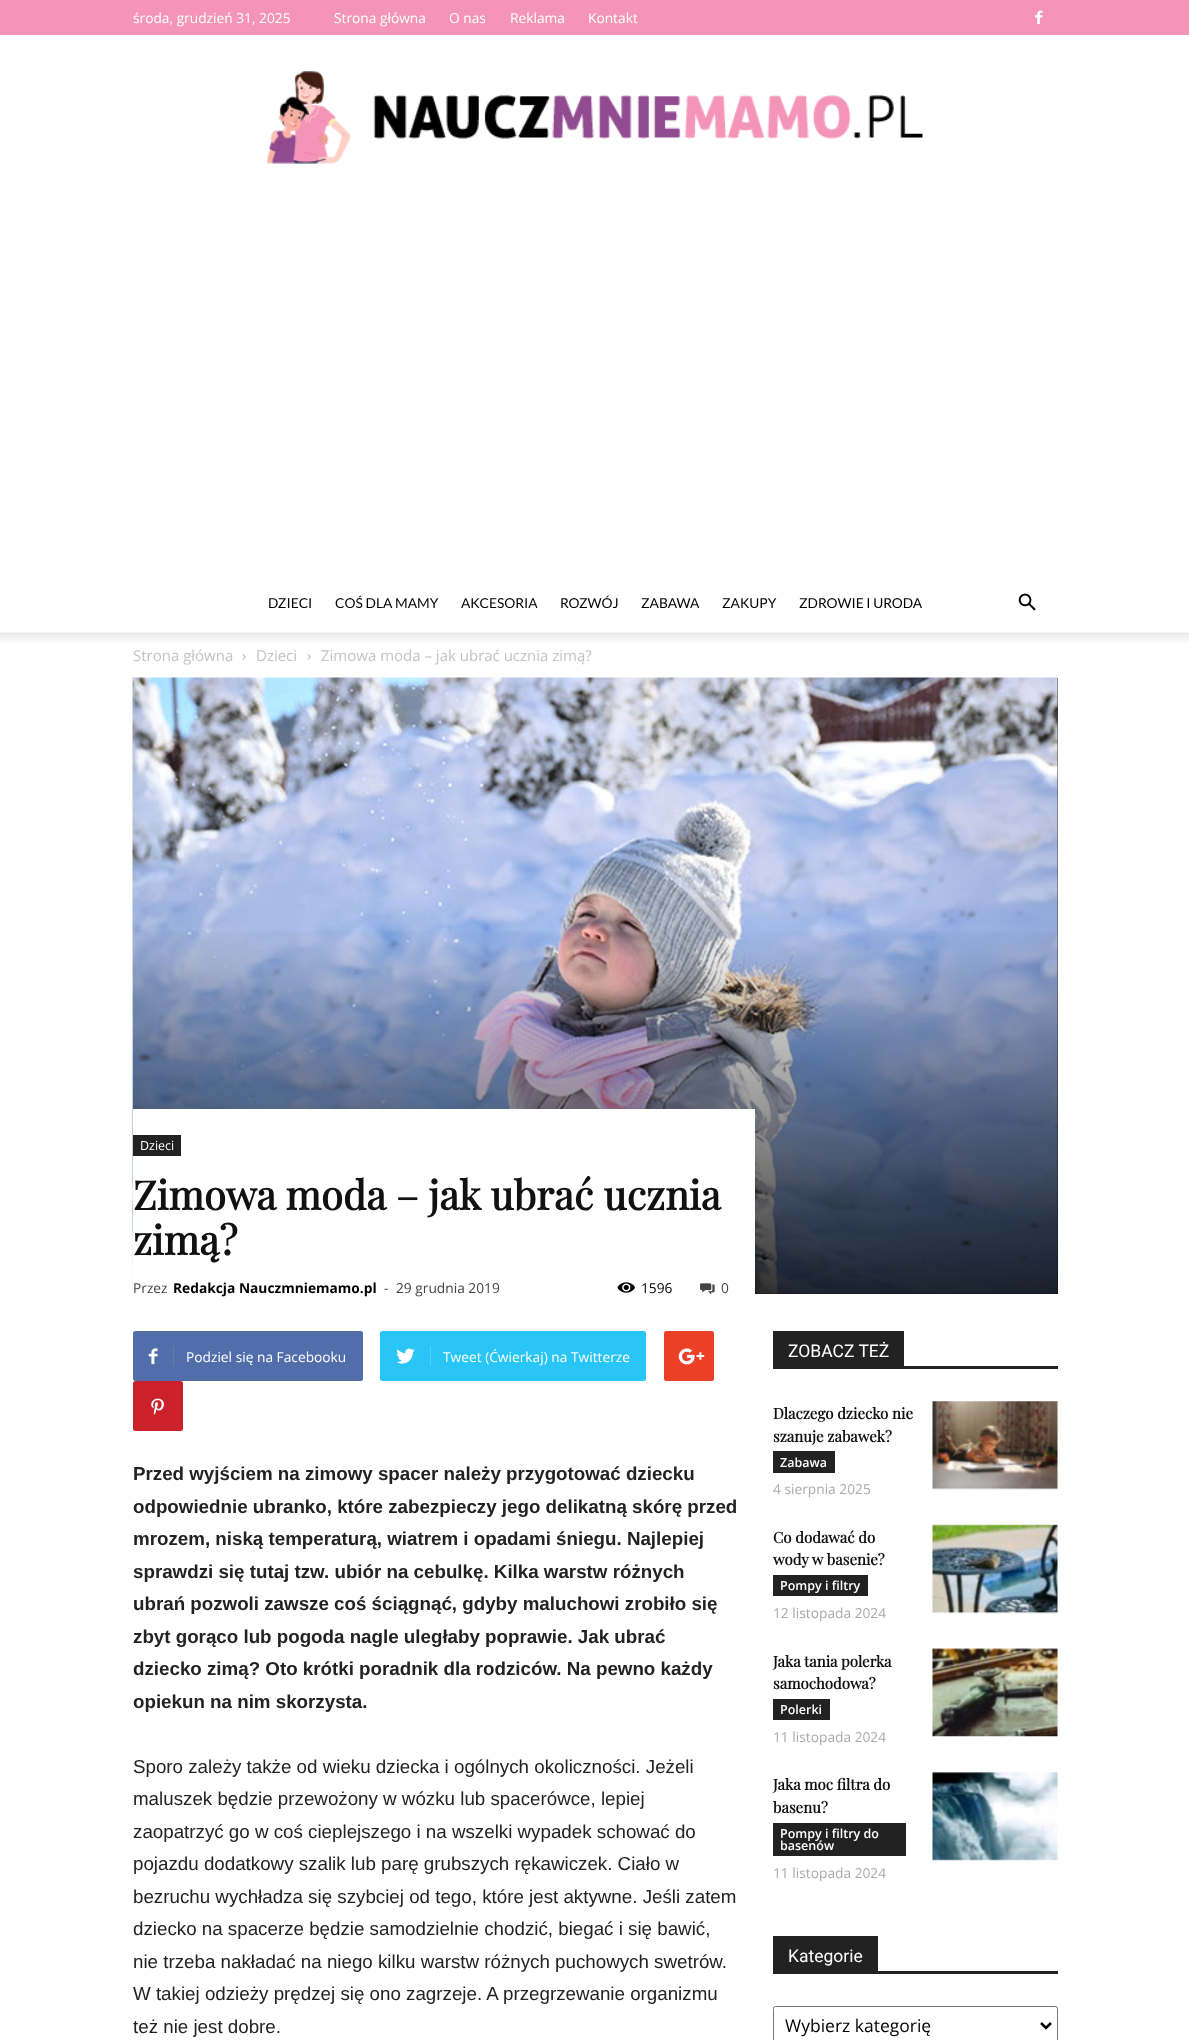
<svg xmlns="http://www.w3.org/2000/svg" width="1189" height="2040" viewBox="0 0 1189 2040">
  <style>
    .t1 { font: 13.75px Open Sans; fill: #fff; }
    .t2 { font: 13.75px Lato; fill: #000; }
    .t3 { font: 15px Open Sans; fill: #c3c3c3; }
    .t4 { font: 12.5px Open Sans; fill: #fff; }
    .t5 { font: bold 40px Playfair Display; fill: #111; }
    .t6 { font: 13.75px Open Sans; fill: #444; }
    .t7 { font: bold 13.75px Open Sans; fill: #000; }
    .t8 { font: 13.75px Open Sans; fill: #000; }
    .t9 { font: bold 18.75px Liberation Sans; fill: #222; }
    .t10 { font: 18.75px Liberation Sans; fill: #222; }
    .t11 { font: 17.5px Roboto; fill: #fff; }
    .t12 { font: bold 15px Playfair Display; fill: #111; }
    .t13 { font: 600 12.5px Open Sans; fill: #fff; }
    .t14 { font: 13.75px Open Sans; fill: #aaa; }
    .t15 { font: 17.5px Open Sans; fill: #000; }
  </style>
  <defs>
    <linearGradient id="g1" gradientUnits="userSpaceOnUse" x1="595" y1="921" x2="595" y2="1294"><stop offset="0" stop-color="#000" stop-opacity="0"/><stop offset="1" stop-color="#000" stop-opacity="0.8"/></linearGradient>
  </defs>
  <rect width="100%" height="100%" fill="#fff"/>
  <rect x="0" y="0" width="1189" height="35" fill="#f495b7"/>
  <text x="133" y="23" class="t1">środa, grudzień 31, 2025</text>
  <text x="334" y="23" class="t1">Strona główna</text>
  <text x="449" y="23" class="t1">O nas</text>
  <text x="510" y="23" class="t1">Reklama</text>
  <text x="588" y="23" class="t1">Kontakt</text>
  <image x="1035" y="10" width="8" height="15" href="images/1.png"/>
  <image x="267" y="71" width="656" height="93" href="images/2.png"/>
  <text x="268" y="608" class="t2">DZIECI</text>
  <text x="335" y="608" class="t2">COŚ DLA MAMY</text>
  <text x="461" y="608" class="t2">AKCESORIA</text>
  <text x="560" y="608" class="t2">ROZWÓJ</text>
  <text x="641" y="608" class="t2">ZABAWA</text>
  <text x="722" y="608" class="t2">ZAKUPY</text>
  <text x="799" y="608" class="t2">ZDROWIE I URODA</text>
  <image x="1018" y="593" width="18" height="18" href="images/3.png"/>
  <image x="0" y="632" width="1189" height="11" href="images/4.png"/>
  <text x="133" y="661" class="t3">Strona główna</text>
  <image x="242" y="654" width="4" height="6" href="images/5.png"/>
  <text x="256" y="661" class="t3">Dzieci</text>
  <image x="307" y="654" width="4" height="6" href="images/5.png"/>
  <text x="321" y="661" class="t3">Zimowa moda – jak ubrać ucznia zimą?</text>
  <rect x="755" y="678" width="303" height="616" fill="#444"/>
  <image x="132" y="677" width="926" height="617" href="images/6.png"/>
  <rect x="133" y="931" width="925" height="363" fill="url(#g1)"/>
  <rect x="133" y="1109" width="622" height="185" fill="#fff"/>
  <rect x="133" y="1135" width="48" height="21" fill="#222"/>
  <text x="140" y="1150" class="t4">Dzieci</text>
  <text x="133" y="1210" class="t5">Zimowa moda – jak ubrać ucznia</text>
  <text x="133" y="1255" class="t5">zimą?</text>
  <text x="133" y="1293" class="t6">Przez</text>
  <text x="173" y="1293" class="t7">Redakcja Nauczmniemamo.pl</text>
  <text x="384" y="1293" class="t6">-</text>
  <text x="396" y="1293" class="t6">29 grudnia 2019</text>
  <image x="617" y="1282" width="18" height="11" href="images/7.png"/>
  <text x="641" y="1293" class="t8">1596</text>
  <image x="700" y="1283" width="15" height="12" href="images/8.png"/>
  <text x="721" y="1293" class="t6">0</text>
  <rect x="133" y="1331" width="230" height="50" rx="2.5" fill="#516eab"/>
  <image x="148" y="1348" width="10" height="17" href="images/9.png"/>
  <rect x="173" y="1346" width="1" height="20" fill="#627db3"/>
  <text x="186" y="1362" class="t1">Podziel się na Facebooku</text>
  <rect x="380" y="1331" width="266" height="50" rx="2.5" fill="#29c5f6"/>
  <image x="396" y="1348" width="19" height="16" href="images/10.png"/>
  <rect x="430" y="1346" width="1" height="20" fill="#54d1f8"/>
  <text x="443" y="1362" class="t1">Tweet (Ćwierkaj) na Twitterze</text>
  <rect x="664" y="1331" width="50" height="50" rx="2.5" fill="#eb4026"/>
  <image x="678" y="1348" width="27" height="17" href="images/11.png"/>
  <rect x="133" y="1381" width="50" height="50" rx="2.5" fill="#ca212a"/>
  <image x="151" y="1398" width="13" height="17" href="images/12.png"/>
  <text x="133" y="1480" class="t9">Przed wyjściem na zimowy spacer należy przygotować dziecku</text>
  <text x="133" y="1513" class="t9">odpowiednie ubranko, które zabezpieczy jego delikatną skórę przed</text>
  <text x="133" y="1545" class="t9">mrozem, niską temperaturą, wiatrem i opadami śniegu. Najlepiej</text>
  <text x="133" y="1578" class="t9">sprawdzi się tutaj tzw. ubiór na cebulkę. Kilka warstw różnych</text>
  <text x="133" y="1610" class="t9">ubrań pozwoli zawsze coś ściągnąć, gdyby maluchowi zrobiło się</text>
  <text x="133" y="1643" class="t9">zbyt gorąco lub pogoda nagle uległaby poprawie. Jak ubrać</text>
  <text x="133" y="1675" class="t9">dziecko zimą? Oto krótki poradnik dla rodziców. Na pewno każdy</text>
  <text x="133" y="1708" class="t9">opiekun na nim skorzysta.</text>
  <text x="133" y="1773" class="t10">Sporo zależy także od wieku dziecka i ogólnych okoliczności. Jeżeli</text>
  <text x="133" y="1805" class="t10">maluszek będzie przewożony w wózku lub spacerówce, lepiej</text>
  <text x="133" y="1838" class="t10">zaopatrzyć go w coś cieplejszego i na wszelki wypadek schować do</text>
  <text x="133" y="1870" class="t10">pojazdu dodatkowy szalik lub parę grubszych rękawiczek. Ciało w</text>
  <text x="133" y="1903" class="t10">bezruchu wychładza się szybciej od tego, które jest aktywne. Jeśli zatem</text>
  <text x="133" y="1935" class="t10">dziecko na spacerze będzie samodzielnie chodzić, biegać i się bawić,</text>
  <text x="133" y="1968" class="t10">nie trzeba nakładać na niego kilku warstw różnych puchowych swetrów.</text>
  <text x="133" y="2000" class="t10">W takiej odzieży prędzej się ono zagrzeje. A przegrzewanie organizmu</text>
  <text x="133" y="2033" class="t10">też nie jest dobre.</text>
  <rect x="773" y="1366" width="285" height="3" fill="#222"/>
  <rect x="773" y="1331" width="131" height="35" fill="#222"/>
  <text x="788" y="1357" class="t11">ZOBACZ TEŻ</text>
  <text x="773" y="1419" class="t12">Dlaczego dziecko nie</text>
  <text x="773" y="1442" class="t12">szanuje zabawek?</text>
  <rect x="773" y="1451" width="62" height="22" fill="#222"/>
  <text x="780" y="1467" class="t13">Zabawa</text>
  <text x="773" y="1494" class="t14">4 sierpnia 2025</text>
  <image x="932" y="1401" width="126" height="89" href="images/13.png"/>
  <text x="773" y="1543" class="t12">Co dodawać do</text>
  <text x="773" y="1565" class="t12">wody w basenie?</text>
  <rect x="773" y="1575" width="95" height="21" fill="#222"/>
  <text x="780" y="1590" class="t13">Pompy i filtry</text>
  <text x="773" y="1618" class="t14">12 listopada 2024</text>
  <image x="932" y="1524" width="126" height="90" href="images/14.png"/>
  <text x="773" y="1667" class="t12">Jaka tania polerka</text>
  <text x="773" y="1689" class="t12">samochodowa?</text>
  <rect x="773" y="1699" width="57" height="21" fill="#222"/>
  <text x="780" y="1714" class="t13">Polerki</text>
  <text x="773" y="1742" class="t14">11 listopada 2024</text>
  <image x="932" y="1648" width="126" height="89" href="images/15.png"/>
  <text x="773" y="1790" class="t12">Jaka moc filtra do</text>
  <text x="773" y="1813" class="t12">basenu?</text>
  <rect x="773" y="1823" width="133" height="33" fill="#222"/>
  <text x="780" y="1838" class="t13">Pompy i filtry do</text>
  <text x="780" y="1850" class="t13">basenów</text>
  <text x="773" y="1878" class="t14">11 listopada 2024</text>
  <image x="932" y="1772" width="126" height="89" href="images/16.png"/>
  <rect x="773" y="1971" width="285" height="3" fill="#222"/>
  <rect x="773" y="1936" width="105" height="35" fill="#222"/>
  <text x="788" y="1962" class="t11">Kategorie</text>
  <rect x="773.5" y="2006.5" width="284" height="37" rx="2" fill="none" stroke="#767676"/>
  <path d="M1041 2023L1046 2028L1051 2023" fill="none" stroke="#000" stroke-width="2.5"/>
  <text x="785" y="2032" class="t15">Wybierz kategorię</text>
</svg>
